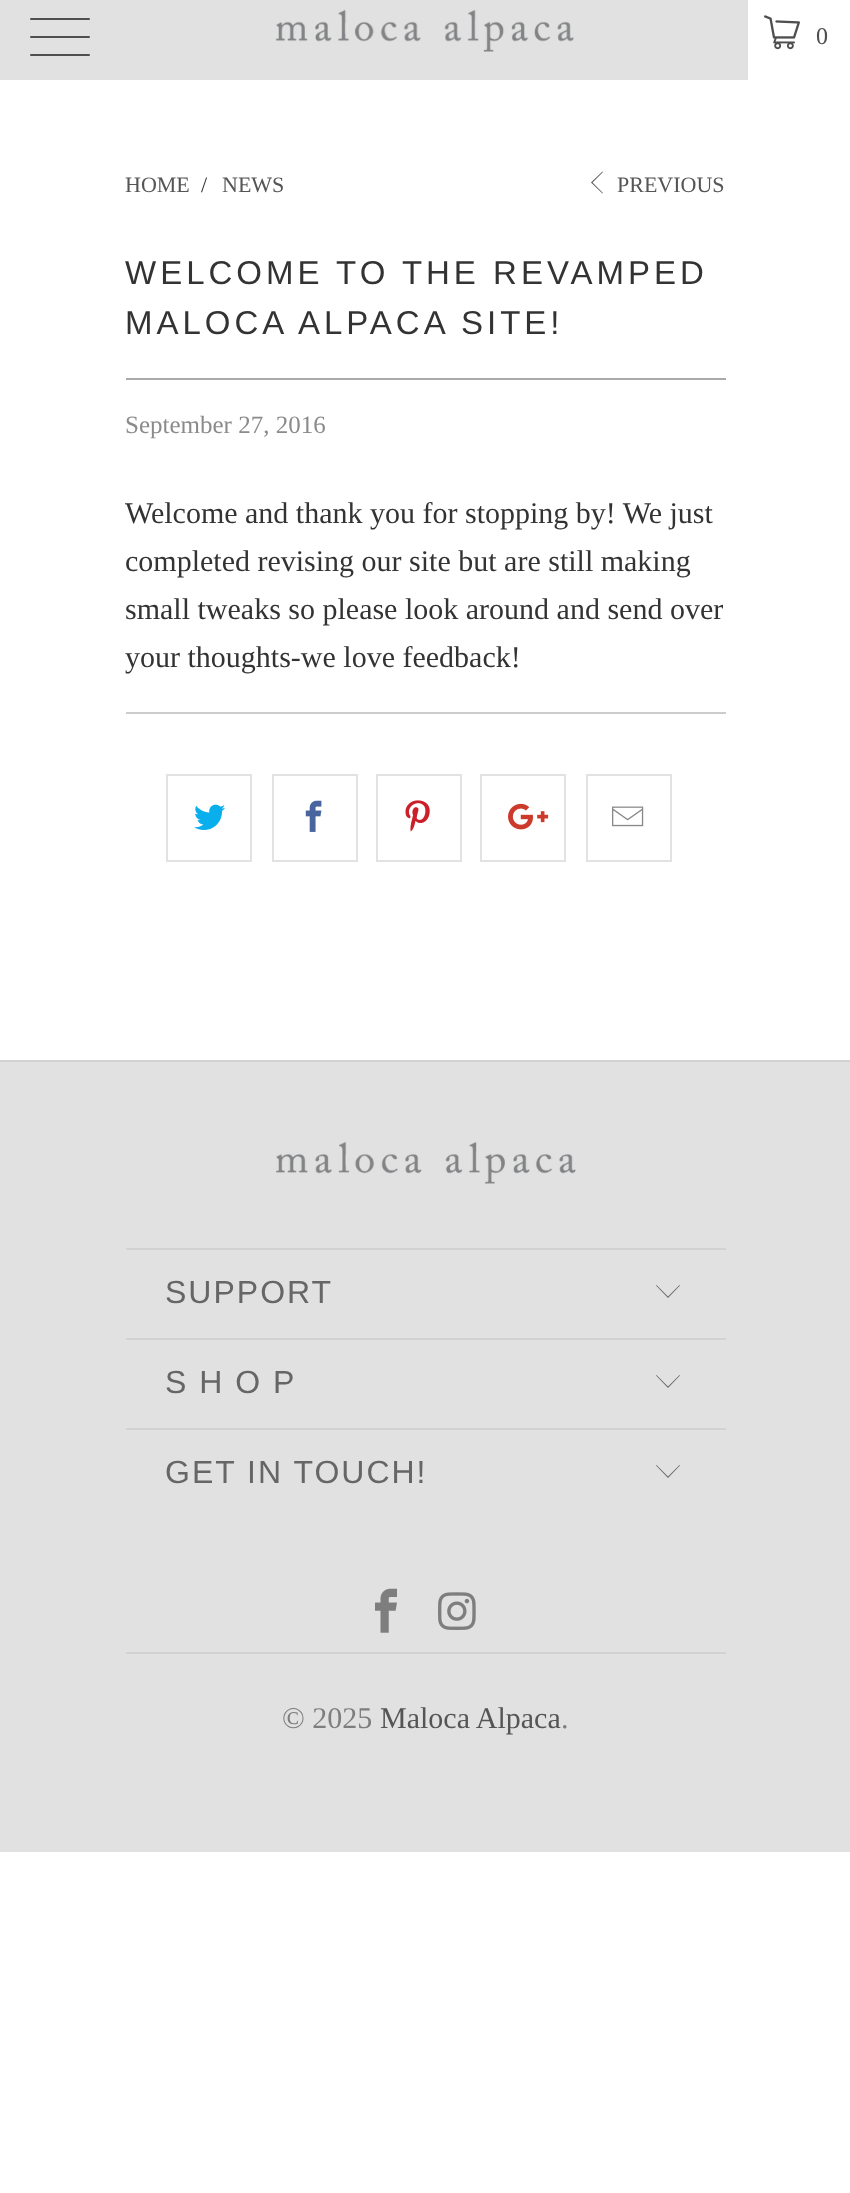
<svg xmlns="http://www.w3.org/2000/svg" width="850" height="2193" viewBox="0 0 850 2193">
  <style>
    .t1 { font: 24px Liberation Serif; letter-spacing: 2px; fill: #4f4f4f; }
    .t2 { font: 22px Liberation Serif; fill: #555; }
    .t3 { font: 22px Liberation Serif; fill: #333; }
    .t4 { font: 33px Liberation Sans; letter-spacing: 4px; fill: #333; }
    .t5 { font: 25px Liberation Serif; fill: #8c8b8b; }
    .t6 { font: 30px Liberation Serif; fill: #333; }
    .t7 { font: 32px Liberation Sans; letter-spacing: 2px; fill: #666; }
    .t8 { font: 30px Liberation Serif; fill: #7e7e7e; }
    .t9 { font: 30px Liberation Serif; fill: #555; }
  </style>
  <rect width="100%" height="100%" fill="#fff"/>
  <rect x="0" y="0" width="748" height="80" fill="#e1e1e1"/>
  <rect x="30" y="18" width="60" height="2" rx="1" fill="#4f4f4f"/>
  <rect x="30" y="36" width="60" height="2" rx="1" fill="#4f4f4f"/>
  <rect x="30" y="54" width="60" height="2" rx="1" fill="#4f4f4f"/>
  <image x="275" y="9" width="299" height="43" href="images/1.png"/>
  <image x="764" y="15" width="36" height="35" href="images/2.png"/>
  <text x="816" y="44" class="t1">0</text>
  <text x="125" y="192" class="t2">HOME</text>
  <text x="201" y="192" class="t3">/</text>
  <text x="222" y="192" class="t2">NEWS</text>
  <path d="M602.5 193.5L591 182.5L602.5 171.5L603 172L592.5 182.5L603 193Z" fill="#555"/>
  <text x="617" y="192" class="t2">PREVIOUS</text>
  <text x="125" y="284" class="t4">WELCOME TO THE REVAMPED</text>
  <text x="125" y="334" class="t4">MALOCA ALPACA SITE!</text>
  <rect x="126" y="378" width="600" height="2" fill="#aaa"/>
  <text x="125" y="433" class="t5">September 27, 2016</text>
  <text x="125" y="523" class="t6">Welcome and thank you for stopping by! We just</text>
  <text x="125" y="571" class="t6">completed revising our site but are still making</text>
  <text x="125" y="619" class="t6">small tweaks so please look around and send over</text>
  <text x="125" y="667" class="t6">your thoughts-we love feedback!</text>
  <rect x="126" y="712" width="600" height="2" fill="#ccc"/>
  <rect x="167" y="775" width="84" height="86" fill="none" stroke="#e2e2e2" stroke-width="2"/>
  <image x="194" y="804" width="31" height="26" href="images/3.png"/>
  <rect x="273" y="775" width="84" height="86" fill="none" stroke="#e2e2e2" stroke-width="2"/>
  <image x="305" y="800" width="17" height="32" href="images/4.png"/>
  <rect x="377" y="775" width="84" height="86" fill="none" stroke="#e2e2e2" stroke-width="2"/>
  <image x="405" y="800" width="25" height="32" href="images/5.png"/>
  <rect x="481" y="775" width="84" height="86" fill="none" stroke="#e2e2e2" stroke-width="2"/>
  <image x="508" y="803" width="41" height="27" href="images/6.png"/>
  <rect x="587" y="775" width="84" height="86" fill="none" stroke="#e2e2e2" stroke-width="2"/>
  <image x="612" y="806" width="32" height="21" href="images/7.png"/>
  <rect x="0" y="1062" width="850" height="790" fill="#e1e1e1"/>
  <rect x="0" y="1060" width="850" height="2" fill="#d2d2d2"/>
  <image x="276" y="1142" width="300" height="42" href="images/8.png"/>
  <rect x="126" y="1248" width="600" height="2" fill="#d2d2d2"/>
  <text x="165" y="1303" class="t7">SUPPORT</text>
  <path d="M668 1298L656 1285.5L656.5 1285L668 1296.5L679.5 1285L680 1285.5Z" fill="#666"/>
  <rect x="126" y="1338" width="600" height="2" fill="#d2d2d2"/>
  <text x="165" y="1393" class="t7">S H O P</text>
  <path d="M668 1388L656 1375.5L656.5 1375L668 1386.5L679.5 1375L680 1375.5Z" fill="#666"/>
  <rect x="126" y="1428" width="600" height="2" fill="#d2d2d2"/>
  <text x="165" y="1483" class="t7">GET IN TOUCH!</text>
  <path d="M668 1478L656 1465.5L656.5 1465L668 1476.5L679.5 1465L680 1465.5Z" fill="#666"/>
  <image x="375" y="1588" width="22" height="45" href="images/9.png"/>
  <image x="438" y="1592" width="38" height="38" href="images/10.png"/>
  <rect x="126" y="1652" width="600" height="2" fill="#d2d2d2"/>
  <text x="282" y="1728" class="t8">© 2025</text>
  <text x="380" y="1728" class="t9">Maloca Alpaca</text>
  <text x="561" y="1728" class="t8">.</text>
</svg>
